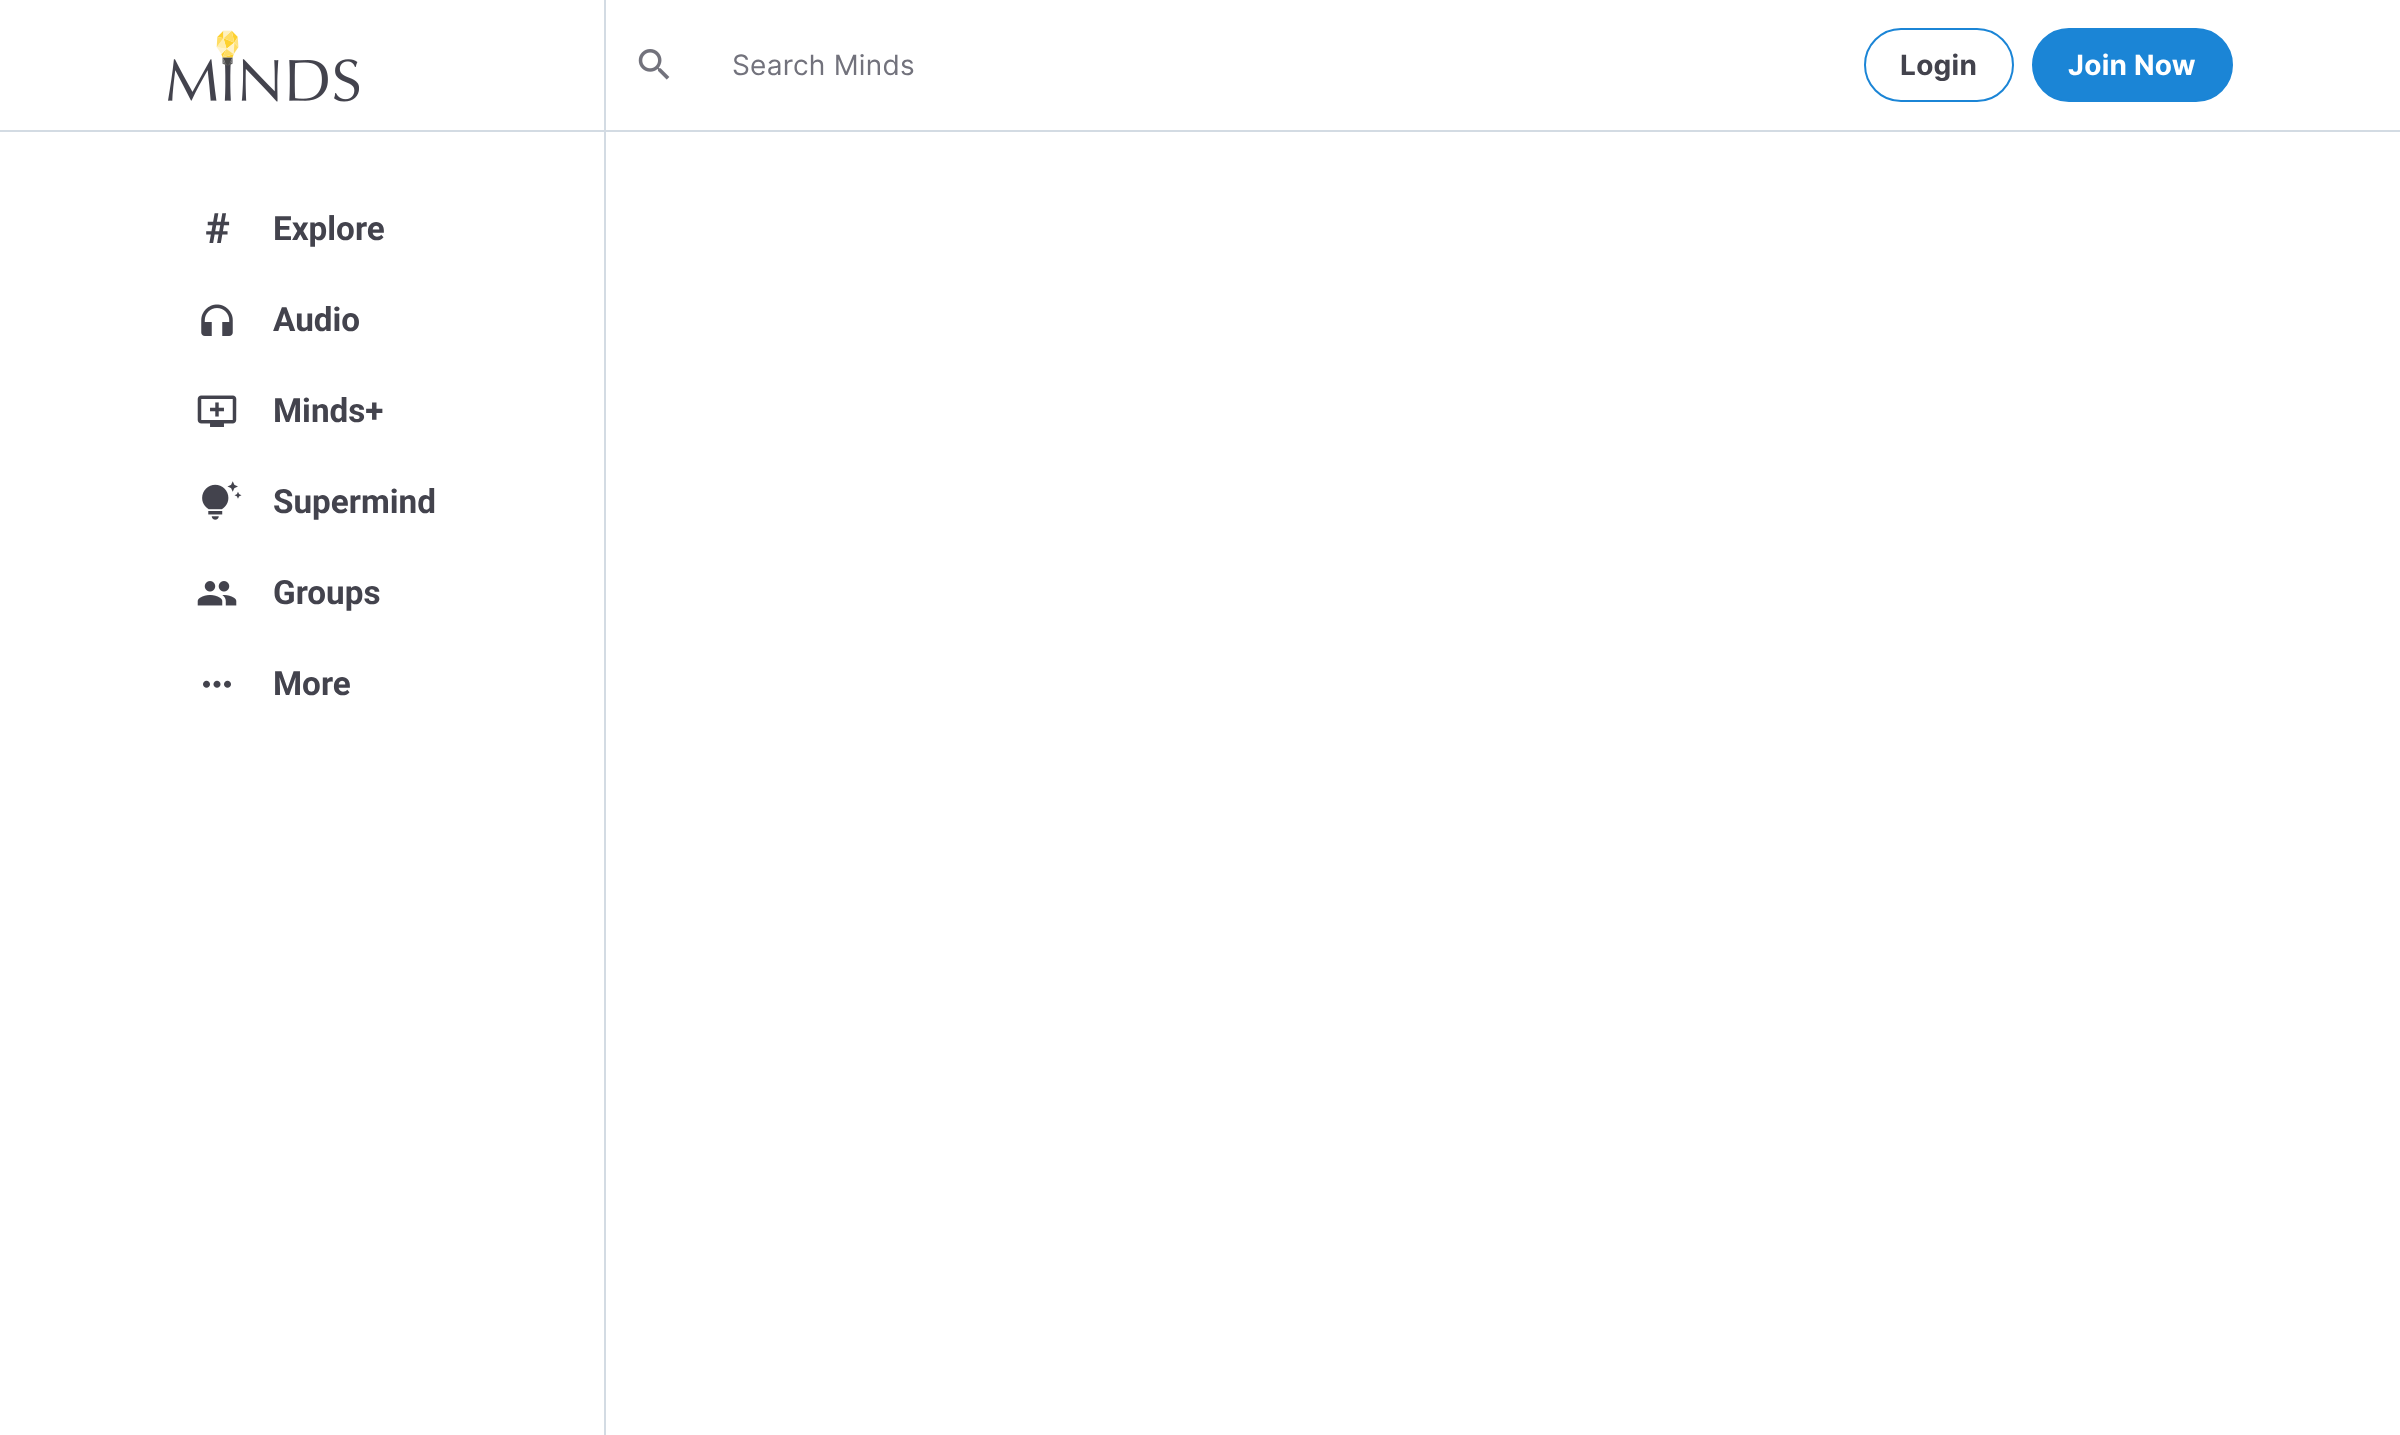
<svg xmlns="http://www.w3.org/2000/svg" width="2400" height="1435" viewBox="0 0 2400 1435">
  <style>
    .t1 { font: 28px Inter; letter-spacing: 0.25px; fill: #72727c; }
    .t2 { font: bold 28px Inter; letter-spacing: 0.25px; fill: #43434d; }
    .t3 { font: bold 28px Inter; letter-spacing: 0.25px; fill: #fff; }
    .t4 { font: bold 42px Roboto; fill: #43434d; }
    .t5 { font: bold 33.25px Roboto; fill: #43434d; }
  </style>
  <rect width="100%" height="100%" fill="#fff"/>
  <rect x="604" y="131" width="2" height="1304" fill="#d3dbe3"/>
  <rect x="0" y="130" width="2400" height="2" fill="#d3dbe3"/>
  <rect x="604" y="0" width="2" height="130" fill="#d3dbe3"/>
  <image x="168" y="30" width="191" height="72" href="images/1.png"/>
  <image x="638" y="49" width="32" height="31" href="images/2.png"/>
  <text x="732" y="75" class="t1">Search Minds</text>
  <rect x="1865" y="29" width="148" height="72" rx="36" fill="none" stroke="#1b85d6" stroke-width="2"/>
  <text x="1900" y="75" class="t2">Login</text>
  <rect x="2033" y="29" width="199" height="72" rx="36" fill="#1b85d6" stroke="#1b85d6" stroke-width="2"/>
  <text x="2068" y="75" class="t3">Join Now</text>
  <text x="205" y="243" class="t4">#</text>
  <text x="273" y="240" class="t5">Explore</text>
  <image x="201" y="304" width="32" height="32" href="images/3.png"/>
  <text x="273" y="331" class="t5">Audio</text>
  <image x="197" y="395" width="40" height="32" href="images/4.png"/>
  <text x="273" y="422" class="t5">Minds+</text>
  <image x="202" y="481" width="40" height="39" href="images/5.png"/>
  <text x="273" y="513" class="t5">Supermind</text>
  <image x="197" y="581" width="40" height="25" href="images/6.png"/>
  <text x="273" y="604" class="t5">Groups</text>
  <image x="203" y="680" width="28" height="8" href="images/7.png"/>
  <text x="273" y="695" class="t5">More</text>
</svg>
